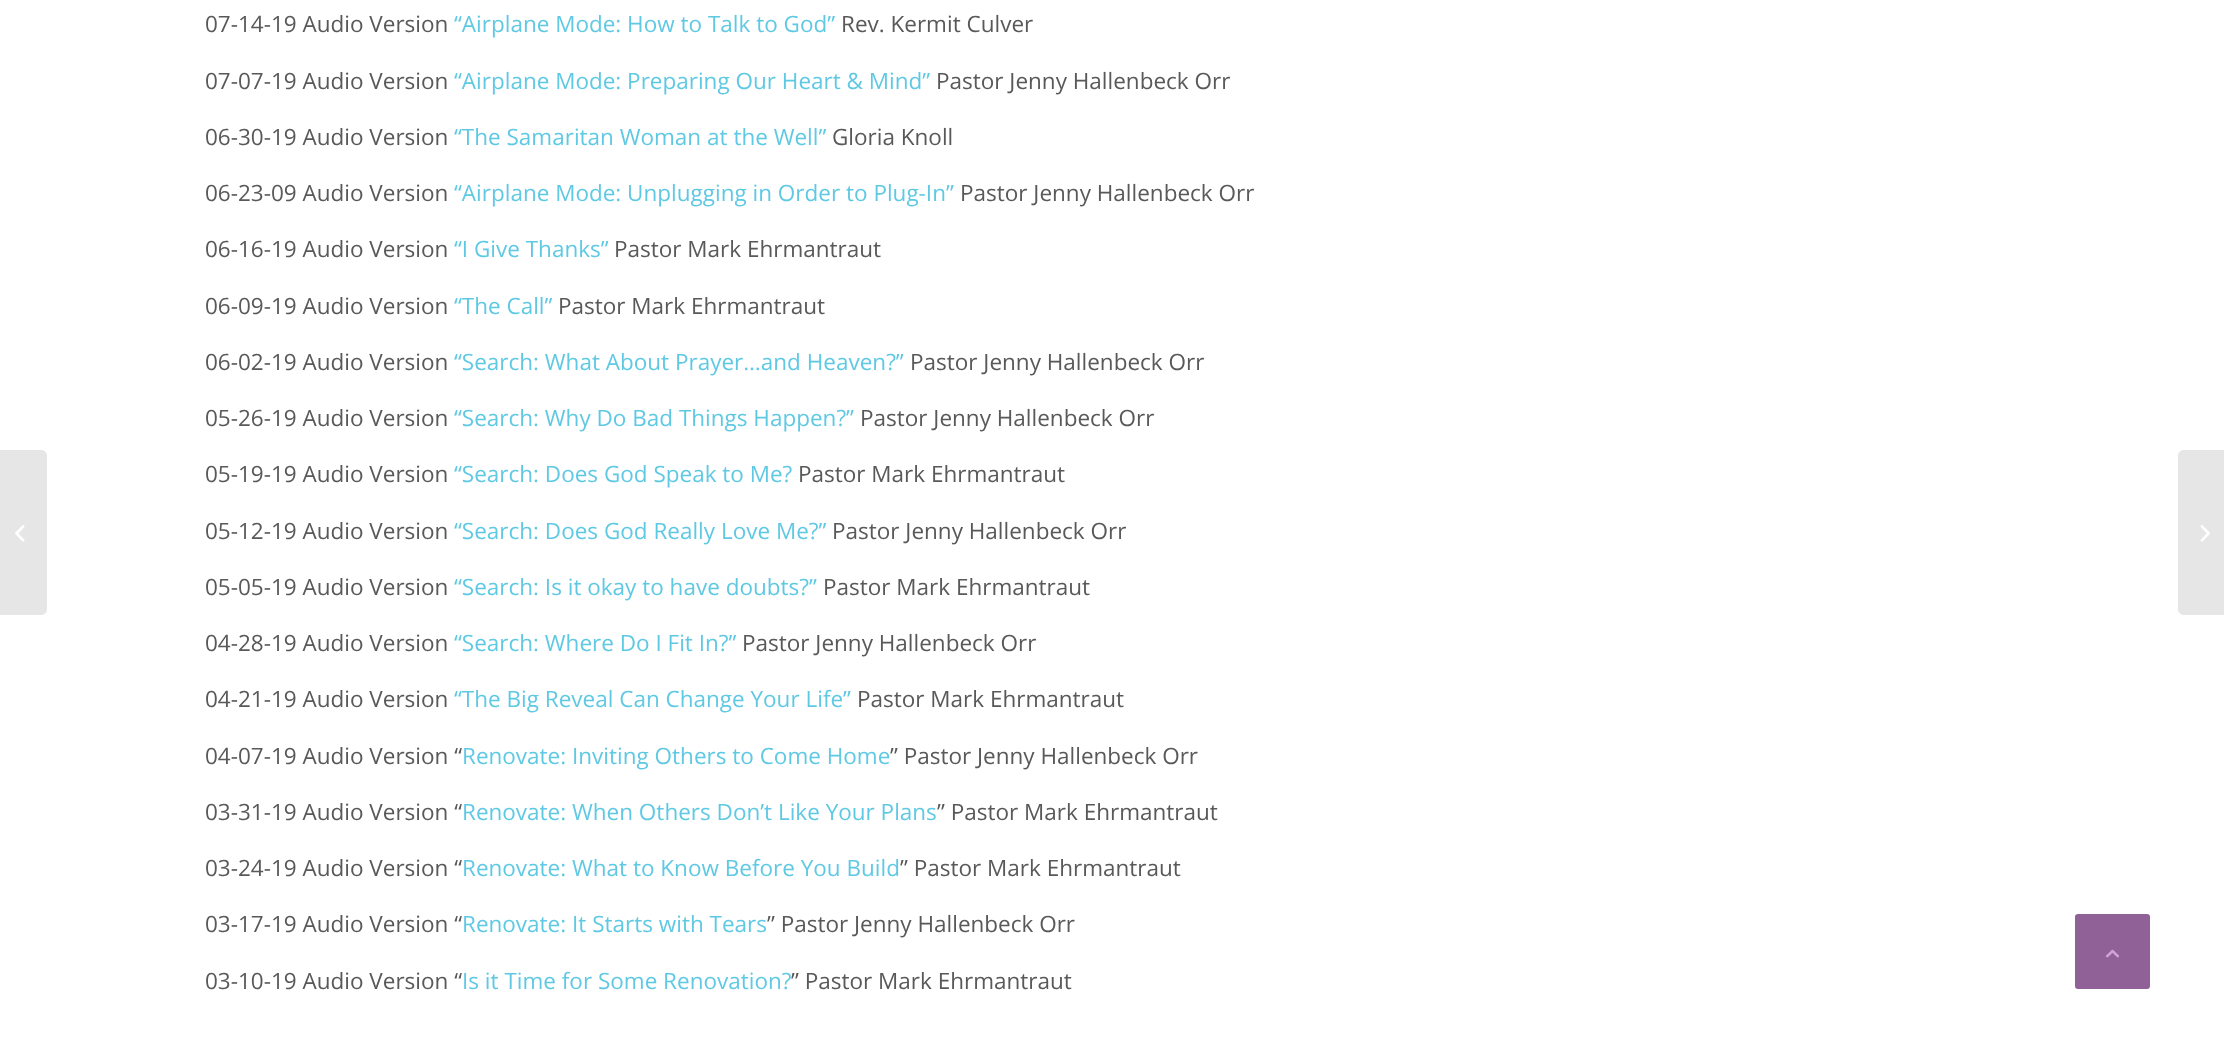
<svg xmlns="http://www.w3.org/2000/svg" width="2224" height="1063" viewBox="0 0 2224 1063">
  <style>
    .t1 { font: 22.5px Open Sans; fill: #595959; }
    .t2 { font: 22.5px Open Sans; fill: #5fc9e4; }
  </style>
  <rect width="100%" height="100%" fill="#fff"/>
  <path d="M0 450H41C44.5 450 47 452.5 47 456V609C47 612.5 44.5 615 41 615H0Z" fill="#e6e6e6"/>
  <image x="15" y="525" width="10" height="17" href="images/1.png"/>
  <text x="205" y="32" class="t1">07-14-19 Audio Version</text>
  <text x="454" y="32" class="t2">“Airplane Mode: How to Talk to God”</text>
  <text x="841" y="32" class="t1">Rev. Kermit Culver</text>
  <text x="205" y="89" class="t1">07-07-19 Audio Version</text>
  <text x="454" y="89" class="t2">“Airplane Mode: Preparing Our Heart &amp; Mind”</text>
  <text x="936" y="89" class="t1">Pastor Jenny Hallenbeck Orr</text>
  <text x="205" y="145" class="t1">06-30-19 Audio Version</text>
  <text x="454" y="145" class="t2">“The Samaritan Woman at the Well”</text>
  <text x="832" y="145" class="t1">Gloria Knoll</text>
  <text x="205" y="201" class="t1">06-23-09 Audio Version</text>
  <text x="454" y="201" class="t2">“Airplane Mode: Unplugging in Order to Plug-In”</text>
  <text x="960" y="201" class="t1">Pastor Jenny Hallenbeck Orr</text>
  <text x="205" y="257" class="t1">06-16-19 Audio Version</text>
  <text x="454" y="257" class="t2">“I Give Thanks”</text>
  <text x="614" y="257" class="t1">Pastor Mark Ehrmantraut</text>
  <text x="205" y="314" class="t1">06-09-19 Audio Version</text>
  <text x="454" y="314" class="t2">“The Call”</text>
  <text x="558" y="314" class="t1">Pastor Mark Ehrmantraut</text>
  <text x="205" y="370" class="t1">06-02-19 Audio Version</text>
  <text x="454" y="370" class="t2">“Search: What About Prayer…and Heaven?”</text>
  <text x="910" y="370" class="t1">Pastor Jenny Hallenbeck Orr</text>
  <text x="205" y="426" class="t1">05-26-19 Audio Version</text>
  <text x="454" y="426" class="t2">“Search: Why Do Bad Things Happen?”</text>
  <text x="860" y="426" class="t1">Pastor Jenny Hallenbeck Orr</text>
  <text x="205" y="482" class="t1">05-19-19 Audio Version</text>
  <text x="454" y="482" class="t2">“Search: Does God Speak to Me?</text>
  <text x="798" y="482" class="t1">Pastor Mark Ehrmantraut</text>
  <text x="205" y="539" class="t1">05-12-19 Audio Version</text>
  <text x="454" y="539" class="t2">“Search: Does God Really Love Me?”</text>
  <text x="832" y="539" class="t1">Pastor Jenny Hallenbeck Orr</text>
  <text x="205" y="595" class="t1">05-05-19 Audio Version</text>
  <text x="454" y="595" class="t2">“Search: Is it okay to have doubts?”</text>
  <text x="823" y="595" class="t1">Pastor Mark Ehrmantraut</text>
  <text x="205" y="651" class="t1">04-28-19 Audio Version</text>
  <text x="454" y="651" class="t2">“Search: Where Do I Fit In?”</text>
  <text x="742" y="651" class="t1">Pastor Jenny Hallenbeck Orr</text>
  <text x="205" y="707" class="t1">04-21-19 Audio Version</text>
  <text x="454" y="707" class="t2">“The Big Reveal Can Change Your Life”</text>
  <text x="857" y="707" class="t1">Pastor Mark Ehrmantraut</text>
  <text x="205" y="764" class="t1">04-07-19 Audio Version “</text>
  <text x="462" y="764" class="t2">Renovate: Inviting Others to Come Home</text>
  <text x="890" y="764" class="t1">” Pastor Jenny Hallenbeck Orr</text>
  <text x="205" y="820" class="t1">03-31-19 Audio Version “</text>
  <text x="462" y="820" class="t2">Renovate: When Others Don’t Like Your Plans</text>
  <text x="937" y="820" class="t1">” Pastor Mark Ehrmantraut</text>
  <text x="205" y="876" class="t1">03-24-19 Audio Version “</text>
  <text x="462" y="876" class="t2">Renovate: What to Know Before You Build</text>
  <text x="900" y="876" class="t1">” Pastor Mark Ehrmantraut</text>
  <text x="205" y="932" class="t1">03-17-19 Audio Version “</text>
  <text x="462" y="932" class="t2">Renovate: It Starts with Tears</text>
  <text x="767" y="932" class="t1">” Pastor Jenny Hallenbeck Orr</text>
  <text x="205" y="989" class="t1">03-10-19 Audio Version “</text>
  <text x="462" y="989" class="t2">Is it Time for Some Renovation?</text>
  <text x="791" y="989" class="t1">” Pastor Mark Ehrmantraut</text>
  <path d="M2184 450H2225V615H2184C2180.5 615 2178 612.5 2178 609V456C2178 452.5 2180.5 450 2184 450Z" fill="#e6e6e6"/>
  <image x="2200" y="525" width="10" height="17" href="images/2.png"/>
  <rect x="2076" y="915" width="73" height="73" rx="2" fill="#8f6197" stroke="#8f6197" stroke-width="2"/>
  <image x="2106" y="949" width="13" height="9" href="images/3.png"/>
</svg>
